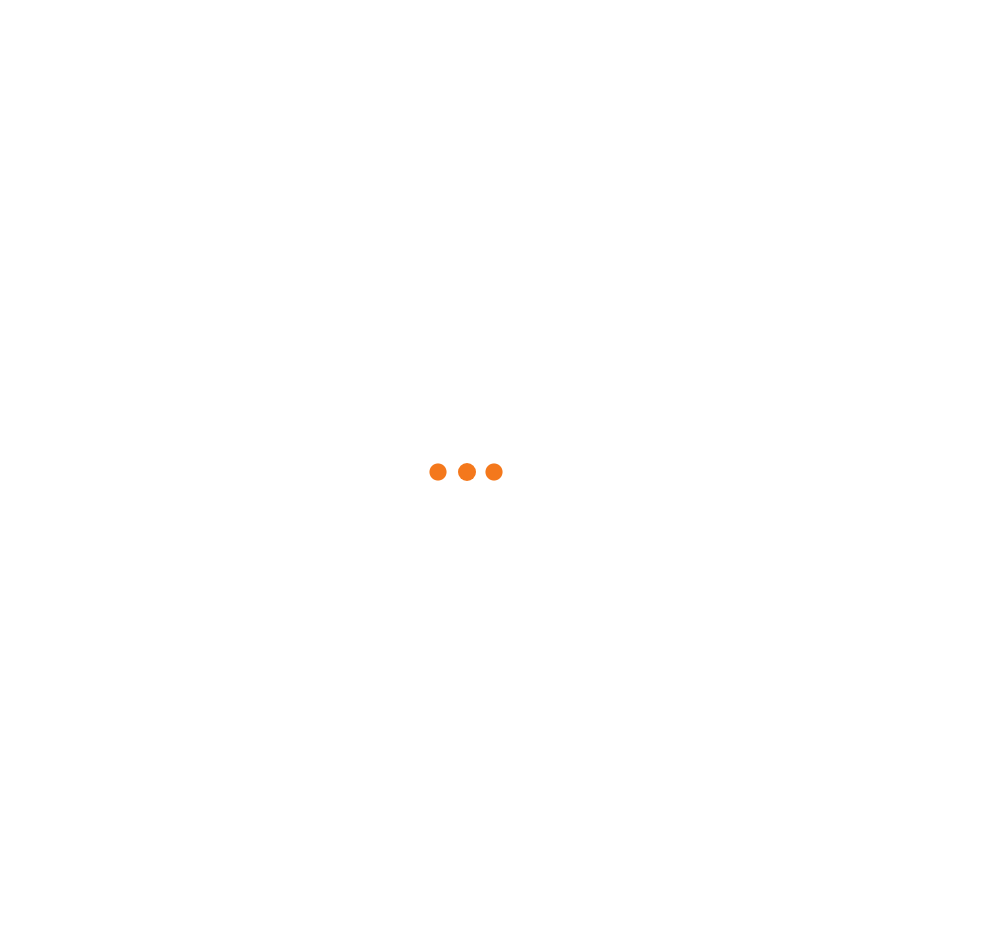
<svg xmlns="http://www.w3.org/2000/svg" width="982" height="943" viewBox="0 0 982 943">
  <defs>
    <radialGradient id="g1" gradientUnits="userSpaceOnUse" cx="494" cy="472" r="9"><stop offset="0.9" stop-color="#f4781c"/><stop offset="1" stop-color="#fff"/></radialGradient>
    <radialGradient id="g2" gradientUnits="userSpaceOnUse" cx="438" cy="472" r="9"><stop offset="0.9" stop-color="#f4781c"/><stop offset="1" stop-color="#fff"/></radialGradient>
  </defs>
  <rect width="100%" height="100%" fill="#fff"/>
  <rect x="485" y="463" width="18" height="18" fill="url(#g1)"/>
  <rect x="429" y="463" width="18" height="18" fill="url(#g2)"/>
  <circle cx="467" cy="472" r="9" fill="#f4781c"/>
</svg>
